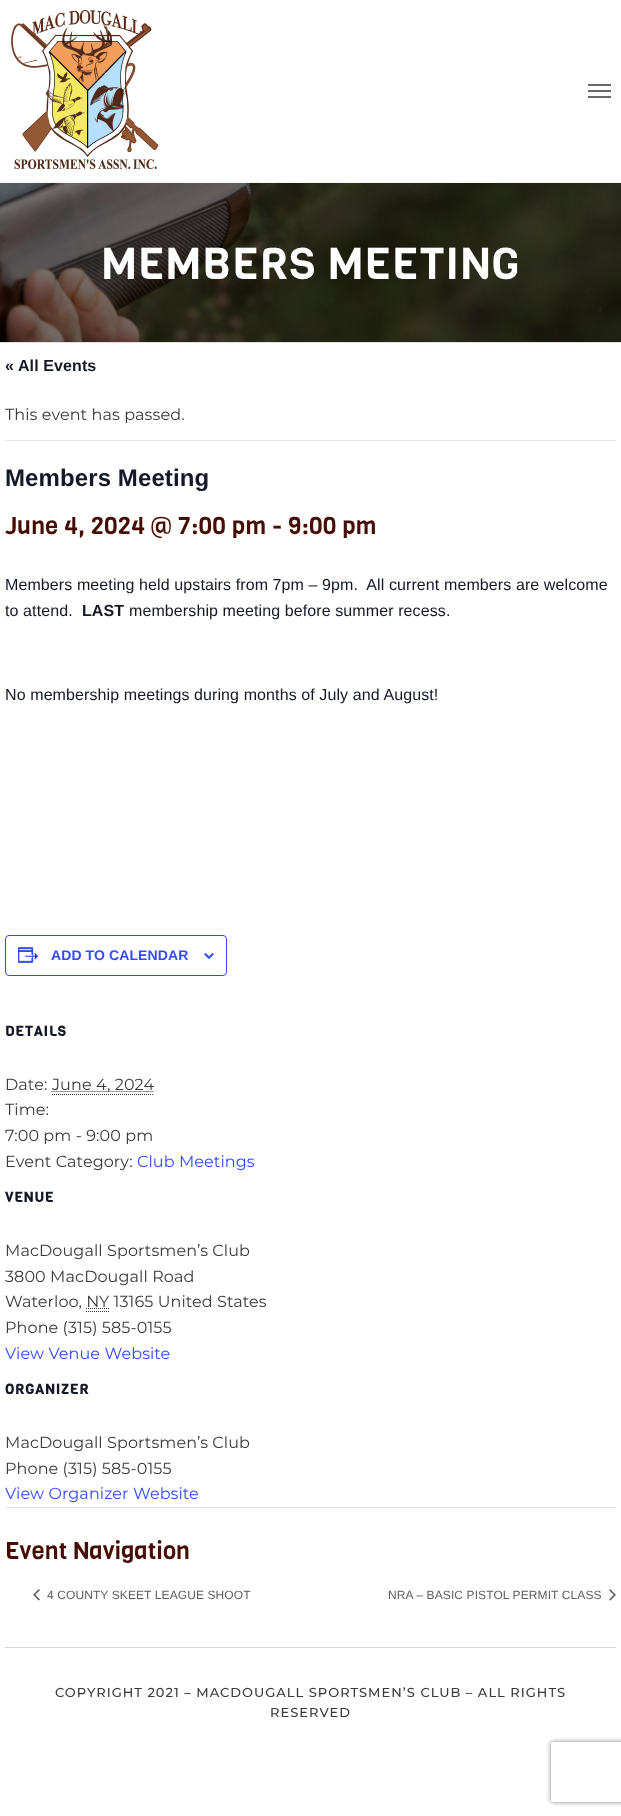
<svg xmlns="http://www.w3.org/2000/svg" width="621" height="1816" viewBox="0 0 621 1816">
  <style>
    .t1 { font: 44px Viga; letter-spacing: 1px; fill: #fff; }
    .t2 { font: bold 16px Liberation Sans; letter-spacing: 0.1px; fill: #141827; }
    .t3 { font: 16px Montserrat; letter-spacing: 0.1px; fill: #3a3a3a; }
    .t4 { font: bold 24px Liberation Sans; letter-spacing: 0.1px; fill: #141827; }
    .t5 { font: 24px Viga; letter-spacing: 0.1px; fill: #470d00; }
    .t6 { font: 16px Liberation Sans; letter-spacing: 0.1px; fill: #141827; }
    .t7 { font: bold 14px Liberation Sans; letter-spacing: 0.1px; fill: #334aff; }
    .t8 { font: bold 14px Viga; letter-spacing: 1px; fill: #141827; }
    .t9 { font: 16px Montserrat; letter-spacing: 0.1px; fill: #334aff; }
    .t10 { font: 12px Liberation Sans; letter-spacing: 0.1px; fill: #5d5d5d; }
    .t11 { font: 500 13px Montserrat; letter-spacing: 1px; fill: #3a3a3a; }
  </style>
  <defs>
    <clipPath id="clip1"><path d="M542 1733H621V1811H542ZM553 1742H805C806 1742 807 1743 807 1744V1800C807 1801 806 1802 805 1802H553C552 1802 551 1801 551 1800V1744C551 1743 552 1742 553 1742Z" clip-rule="evenodd"/></clipPath>
  </defs>
  <rect width="100%" height="100%" fill="#fff"/>
  <rect x="0" y="182" width="621" height="1" fill="#f5f5f5"/>
  <image x="11" y="10" width="148" height="160" href="images/1.png"/>
  <rect x="588" y="84" width="23" height="2" fill="#686868"/>
  <rect x="588" y="90" width="23" height="2" fill="#686868"/>
  <rect x="588" y="96" width="23" height="2" fill="#686868"/>
  <image x="0" y="183" width="621" height="159" href="images/2.png"/>
  <rect x="0" y="342" width="621" height="1" fill="#e1e1e1"/>
  <text x="101" y="279" class="t1">MEMBERS MEETING</text>
  <text x="5" y="371" class="t2">« All Events</text>
  <rect x="5" y="440" width="611" height="1" fill="#e4e4e4"/>
  <text x="5" y="420" class="t3">This event has passed.</text>
  <text x="5" y="486" class="t4">Members Meeting</text>
  <text x="5" y="534" class="t5">June 4, 2024 @ 7:00 pm - 9:00 pm</text>
  <text x="5" y="590" class="t6" xml:space="preserve">Members meeting held upstairs from 7pm – 9pm.  All current members are welcome</text>
  <text x="5" y="616" class="t6">to attend.</text>
  <text x="82" y="616" class="t2">LAST</text>
  <text x="129" y="616" class="t6">membership meeting before summer recess.</text>
  <text x="5" y="700" class="t6">No membership meetings during months of July and August!</text>
  <rect x="5.5" y="935.5" width="221" height="40" rx="3.5" fill="none" stroke="#334aff"/>
  <image x="18" y="947" width="21" height="16" href="images/3.png"/>
  <text x="51" y="960" class="t7">ADD TO CALENDAR</text>
  <image x="204" y="953" width="10" height="6" href="images/4.png"/>
  <text x="5" y="1036" class="t8">DETAILS</text>
  <text x="5" y="1090" class="t3">Date:</text>
  <path d="M51.5 1091.5H154" fill="none" stroke="#3a3a3a" stroke-dasharray="1 1"/>
  <text x="52" y="1090" class="t3">June 4, 2024</text>
  <path d="M52 1094.5H154" fill="none" stroke="#3a3a3a" stroke-dasharray="1 1"/>
  <text x="5" y="1115" class="t3">Time:</text>
  <text x="5" y="1141" class="t3">7:00 pm - 9:00 pm</text>
  <text x="5" y="1167" class="t3">Event Category:</text>
  <text x="137" y="1167" class="t9">Club Meetings</text>
  <text x="5" y="1202" class="t8">VENUE</text>
  <text x="5" y="1256" class="t3">MacDougall Sportsmen’s Club</text>
  <text x="5" y="1282" class="t3">3800 MacDougall Road</text>
  <text x="5" y="1307" class="t3">Waterloo, NY 13165 United States</text>
  <path d="M86 1311.5H109M86 1308.5H109.5" fill="none" stroke="#3a3a3a" stroke-dasharray="1 1"/>
  <text x="5" y="1333" class="t3">Phone (315) 585-0155</text>
  <text x="5" y="1359" class="t9">View Venue Website</text>
  <text x="5" y="1394" class="t8">ORGANIZER</text>
  <text x="5" y="1448" class="t3">MacDougall Sportsmen’s Club</text>
  <text x="5" y="1474" class="t3">Phone (315) 585-0155</text>
  <text x="5" y="1499" class="t9">View Organizer Website</text>
  <rect x="5" y="1507" width="611" height="1" fill="#e4e4e4"/>
  <text x="5" y="1559" class="t5">Event Navigation</text>
  <image x="33" y="1589" width="7" height="12" href="images/5.png"/>
  <text x="47" y="1599" class="t10">4 COUNTY SKEET LEAGUE SHOOT</text>
  <text x="388" y="1599" class="t10">NRA – BASIC PISTOL PERMIT CLASS</text>
  <image x="609" y="1589" width="7" height="12" href="images/6.png"/>
  <rect x="5" y="1647" width="611" height="1" fill="#d7d7d7"/>
  <text x="55" y="1697" class="t11">COPYRIGHT 2021 – MACDOUGALL SPORTSMEN’S CLUB – ALL RIGHTS</text>
  <text x="270" y="1717" class="t11">RESERVED</text>
  <g clip-path="url(#clip1)">
    <rect x="551" y="1742" width="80" height="60" rx="2" fill="#808080" filter="blur(2.5px)"/>
  </g>
</svg>
